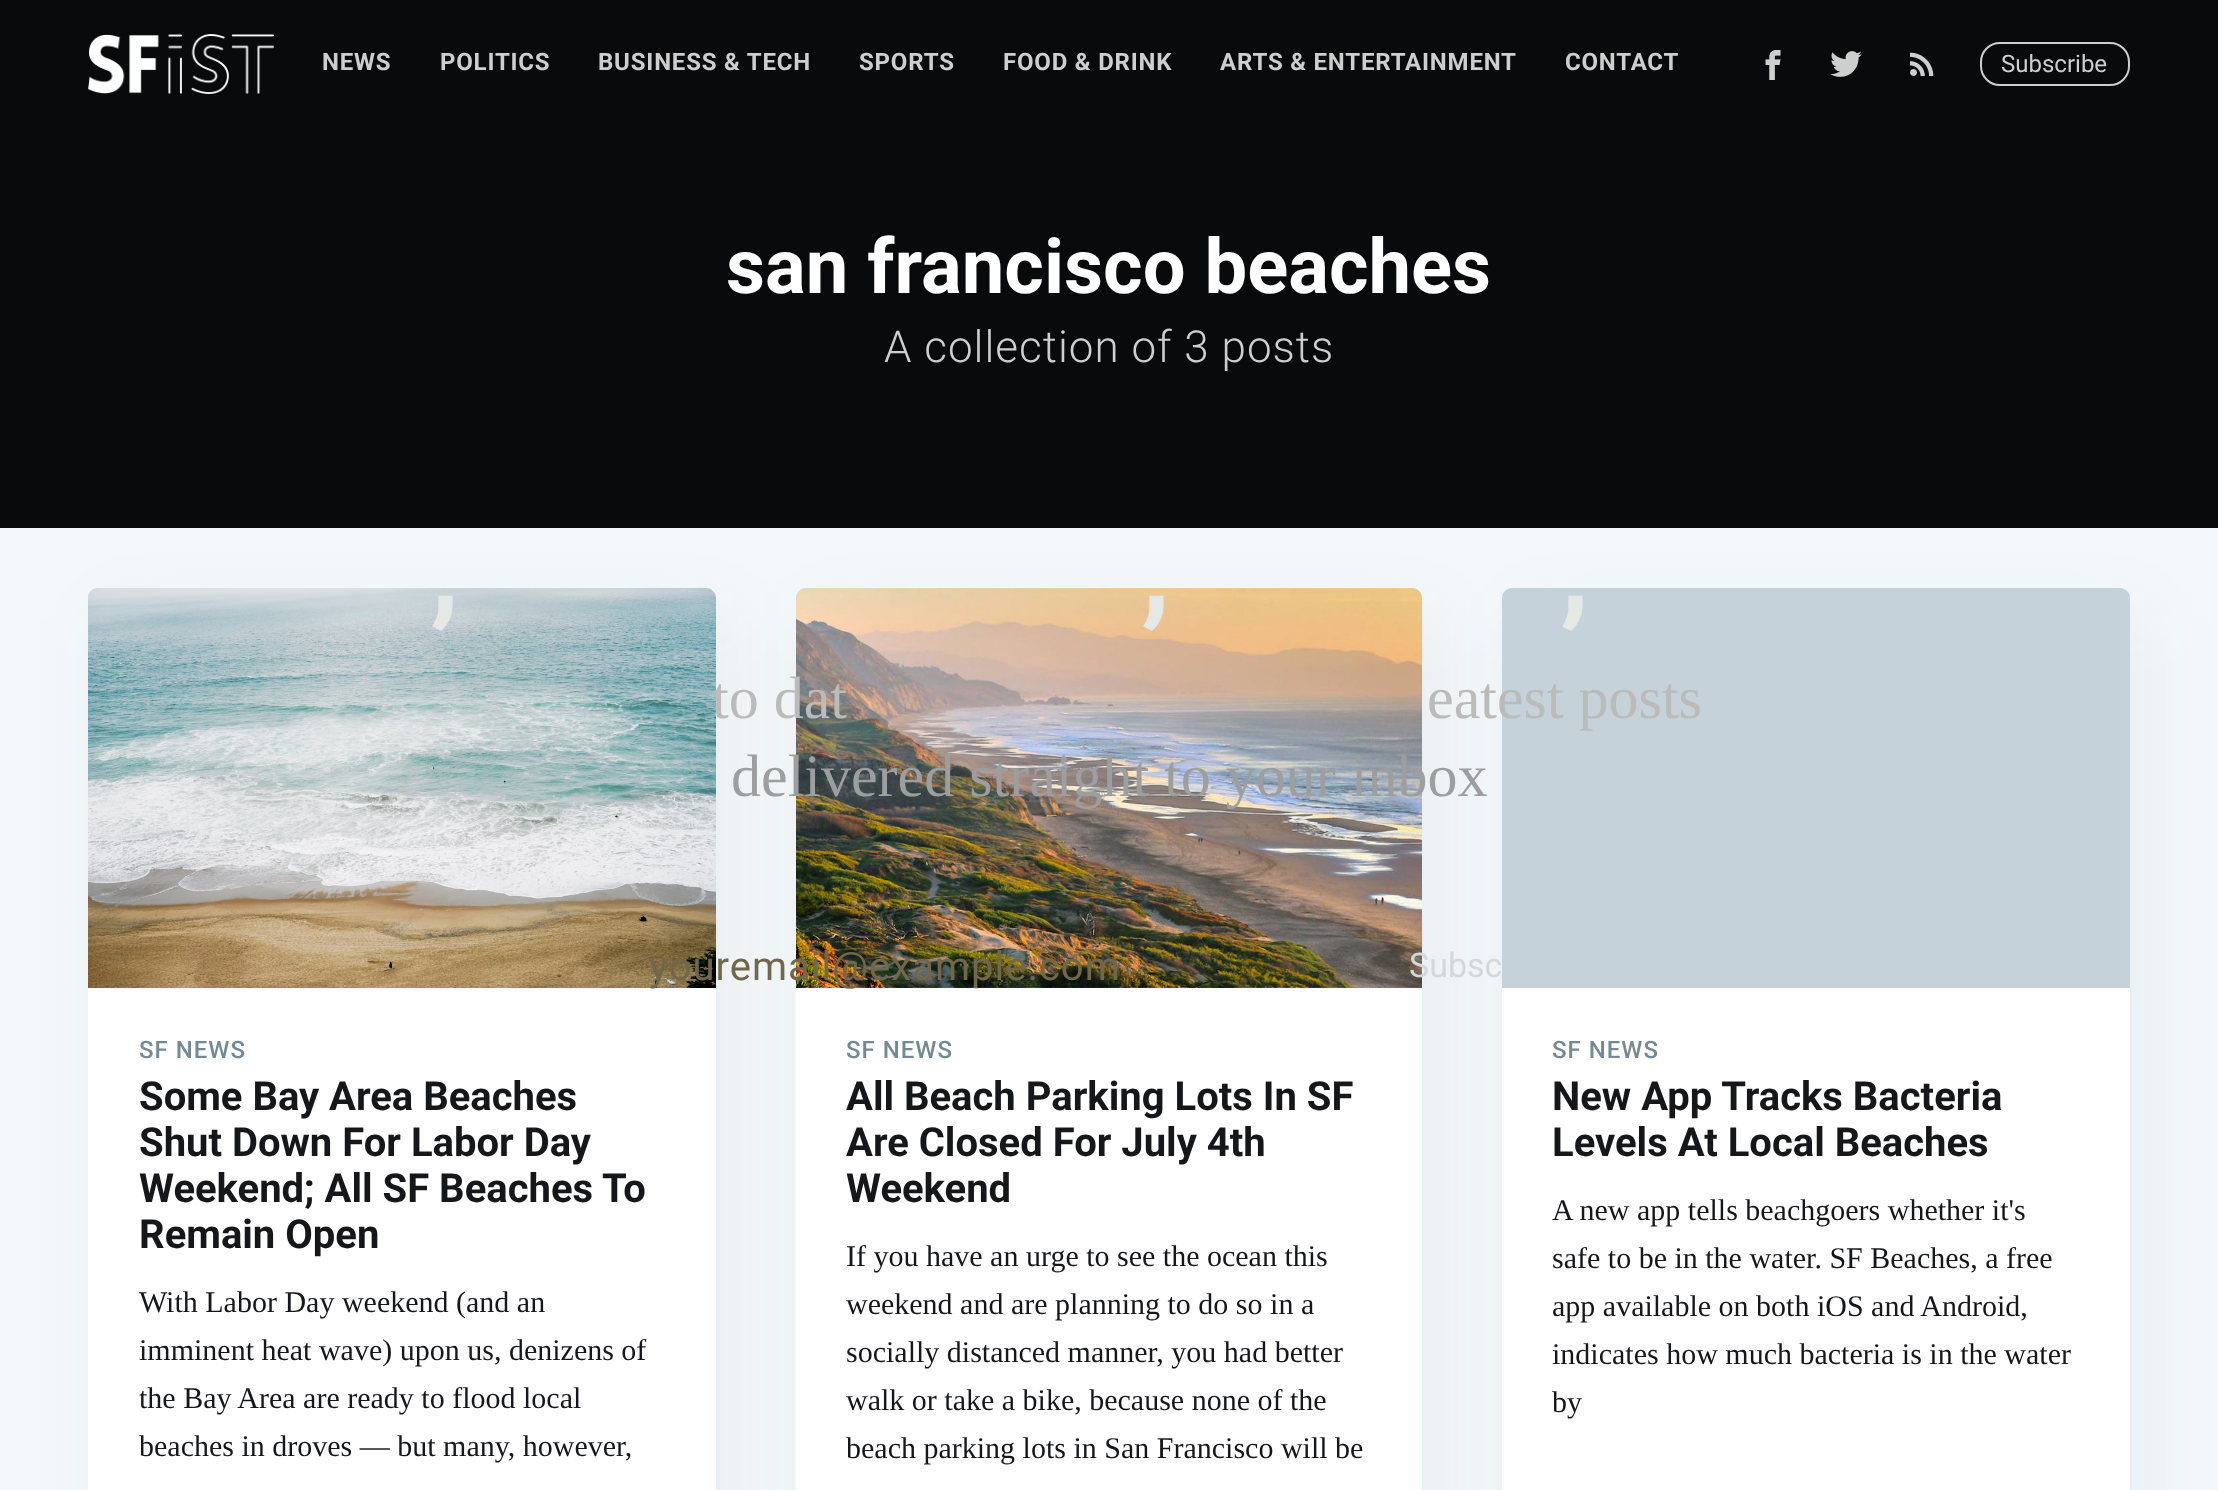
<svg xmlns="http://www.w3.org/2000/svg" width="2218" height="1490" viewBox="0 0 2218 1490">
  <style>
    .t1 { font: bold 24px Roboto; letter-spacing: 0.8px; fill: #cecece; }
    .t2 { font: 24px Roboto; fill: #cecece; }
    .t3 { font: bold 76px Roboto; fill: #fff; }
    .t4 { font: 300 44px Roboto; letter-spacing: 1px; fill: #cecece; }
    .t5 { font: 500 24px Roboto; letter-spacing: 1px; fill: #738a94; }
    .t6 { font: bold 40px Roboto; fill: #15171a; }
    .t7 { font: 30px Liberation Serif; fill: #15171a; }
    .t8 { font: bold 120px Roboto; fill: #e6e8e6; }
    .t9 { font: 60px Liberation Serif; fill: #bbbbb9; }
    .t10 { font: 60px Liberation Serif; fill: #9d9e9f; }
    .t11 { font: 40px Roboto; letter-spacing: 1px; fill: #71684b; }
    .t12 { font: 34px Roboto; fill: #d3d8db; }
  </style>
  <rect width="100%" height="100%" fill="#f4f8fb"/>
  <rect x="0" y="0" width="2218" height="528" fill="#090a0b"/>
  <image x="88" y="34" width="186" height="60" href="images/1.png"/>
  <text x="322" y="70" class="t1">NEWS</text>
  <text x="440" y="70" class="t1">POLITICS</text>
  <text x="598" y="70" class="t1">BUSINESS &amp; TECH</text>
  <text x="859" y="70" class="t1">SPORTS</text>
  <text x="1003" y="70" class="t1">FOOD &amp; DRINK</text>
  <text x="1220" y="70" class="t1">ARTS &amp; ENTERTAINMENT</text>
  <text x="1565" y="70" class="t1">CONTACT</text>
  <image x="1765" y="50" width="16" height="30" href="images/2.png"/>
  <image x="1830" y="51" width="32" height="26" href="images/3.png"/>
  <image x="1910" y="52" width="24" height="24" href="images/4.png"/>
  <rect x="1981" y="43" width="148" height="42" rx="19" fill="none" stroke="#cecece" stroke-width="2"/>
  <text x="2001" y="72" class="t2">Subscribe</text>
  <text x="726" y="293" class="t3">san francisco beaches</text>
  <text x="884" y="362" class="t4">A collection of 3 posts</text>
  <rect x="104" y="616" width="628" height="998" rx="10" fill="#272c310f" filter="blur(38px)"/>
  <rect x="88" y="588" width="628" height="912" rx="10" fill="#fff"/>
  <rect x="812" y="616" width="626" height="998" rx="10" fill="#272c310f" filter="blur(38px)"/>
  <path d="M98 588H706C711.5 588 716 592.5 716 598V988H88V598C88 592.5 92.5 588 98 588Z" fill="#c5d2d9"/>
  <image x="88" y="588" width="628" height="400" href="images/5.png"/>
  <text x="139" y="1058" class="t5">SF NEWS</text>
  <text x="139" y="1110" class="t6">Some Bay Area Beaches</text>
  <text x="139" y="1156" class="t6">Shut Down For Labor Day</text>
  <text x="139" y="1202" class="t6">Weekend; All SF Beaches To</text>
  <text x="139" y="1248" class="t6">Remain Open</text>
  <text x="139" y="1312" class="t7">With Labor Day weekend (and an</text>
  <text x="139" y="1360" class="t7">imminent heat wave) upon us, denizens of</text>
  <text x="139" y="1408" class="t7">the Bay Area are ready to flood local</text>
  <text x="139" y="1456" class="t7">beaches in droves — but many, however,</text>
  <rect x="796" y="588" width="626" height="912" rx="10" fill="#fff"/>
  <rect x="1518" y="616" width="628" height="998" rx="10" fill="#272c310f" filter="blur(38px)"/>
  <path d="M806 588H1412C1417.5 588 1422 592.5 1422 598V988H796V598C796 592.5 800.5 588 806 588Z" fill="#c5d2d9"/>
  <image x="796" y="588" width="626" height="400" href="images/6.png"/>
  <text x="846" y="1058" class="t5">SF NEWS</text>
  <text x="846" y="1110" class="t6">All Beach Parking Lots In SF</text>
  <text x="846" y="1156" class="t6">Are Closed For July 4th</text>
  <text x="846" y="1202" class="t6">Weekend</text>
  <text x="846" y="1266" class="t7">If you have an urge to see the ocean this</text>
  <text x="846" y="1314" class="t7">weekend and are planning to do so in a</text>
  <text x="846" y="1362" class="t7">socially distanced manner, you had better</text>
  <text x="846" y="1410" class="t7">walk or take a bike, because none of the</text>
  <text x="846" y="1458" class="t7">beach parking lots in San Francisco will be</text>
  <rect x="1502" y="588" width="628" height="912" rx="10" fill="#fff"/>
  <path d="M1512 588H2120C2125.5 588 2130 592.5 2130 598V988H1502V598C1502 592.5 1506.5 588 1512 588Z" fill="#c5d2d9"/>
  <text x="1552" y="1058" class="t5">SF NEWS</text>
  <text x="1552" y="1110" class="t6">New App Tracks Bacteria</text>
  <text x="1552" y="1156" class="t6">Levels At Local Beaches</text>
  <text x="1552" y="1220" class="t7">A new app tells beachgoers whether it's</text>
  <text x="1552" y="1268" class="t7">safe to be in the water. SF Beaches, a free</text>
  <text x="1552" y="1316" class="t7">app available on both iOS and Android,</text>
  <text x="1552" y="1364" class="t7">indicates how much bacteria is in the water</text>
  <text x="1552" y="1412" class="t7">by</text>
  <text x="430" y="610" class="t8">,</text>
  <text x="1141" y="610" class="t8">,</text>
  <text x="1560" y="610" class="t8">,</text>
  <text x="712" y="718" class="t9">to dat</text>
  <text x="1427" y="718" class="t9">eatest posts</text>
  <text x="731" y="796" class="t10">delivered straight to your inbox</text>
  <text x="649" y="980" class="t11">youremail@example.com</text>
  <text x="1409" y="977" class="t12">Subsc</text>
</svg>
